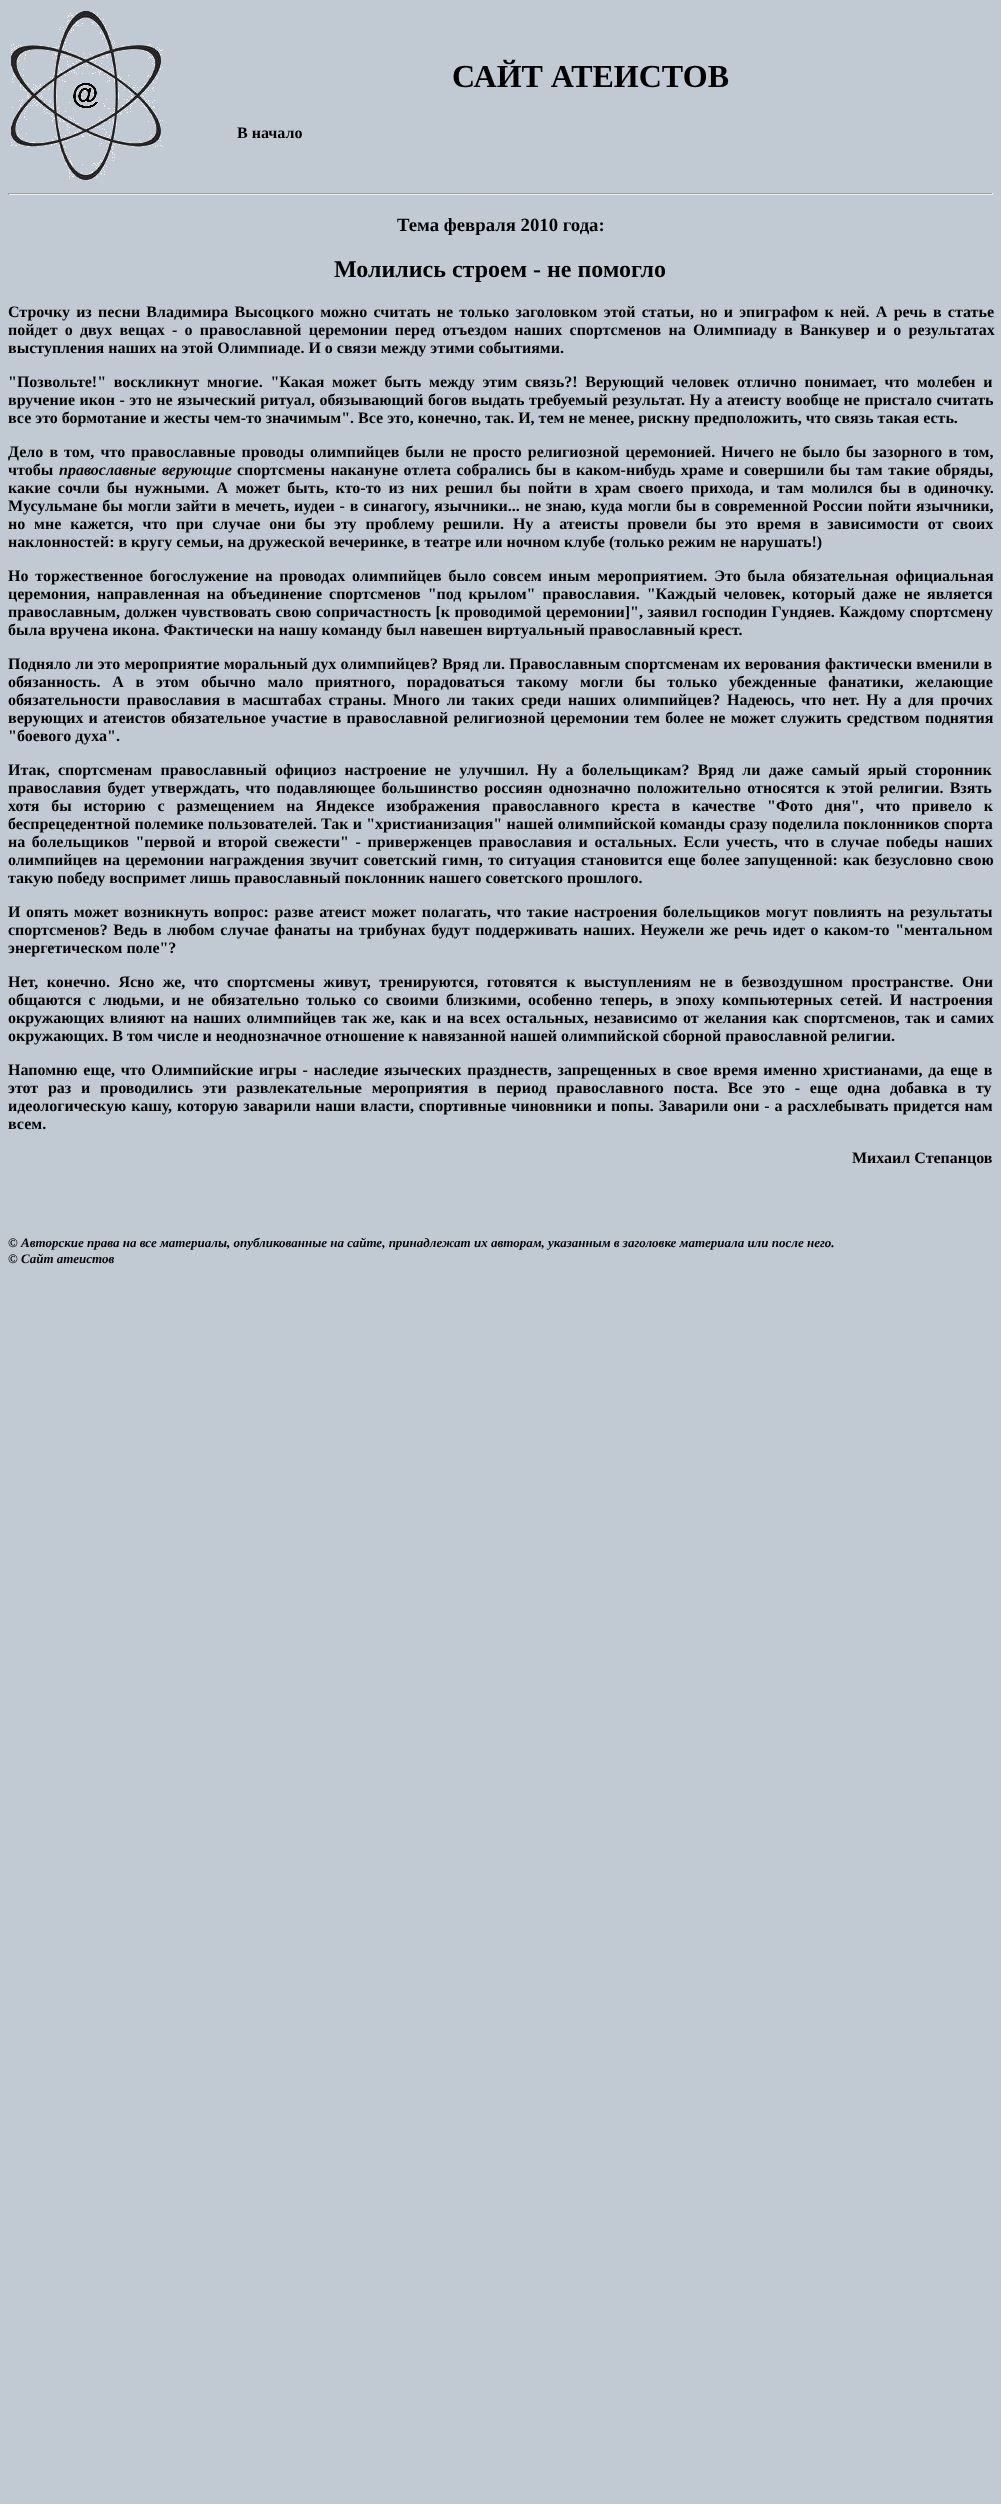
<svg xmlns="http://www.w3.org/2000/svg" width="1001" height="2504" viewBox="0 0 1001 2504">
  <style>
    .t1 { font: bold 32px Liberation Serif; fill: #000; }
    .t2 { font: bold 16px Liberation Serif; fill: #000; }
    .t3 { font: bold 18.75px Liberation Serif; fill: #000; }
    .t4 { font: bold 24px Liberation Serif; fill: #000; }
    .t5 { font: italic bold 16px Liberation Serif; fill: #000; }
    .t6 { font: italic bold 13px Liberation Serif; fill: #000; }
  </style>
  <rect width="100%" height="100%" fill="#c1cad2"/>
  <image x="11" y="11" width="152" height="170" href="images/1.png"/>
  <text x="452" y="87" class="t1">САЙТ АТЕИСТОВ</text>
  <text x="237" y="138" class="t2">В начало</text>
  <rect x="8" y="193" width="985" height="1" fill="#9f9f9f"/>
  <rect x="992" y="193" width="1" height="2" fill="#eee"/>
  <rect x="8" y="194" width="985" height="1" fill="#eee"/>
  <rect x="8" y="193" width="1" height="2" fill="#9f9f9f"/>
  <text x="397" y="231" class="t3">Тема февраля 2010 года:</text>
  <text x="334" y="277" class="t4">Молились строем - не помогло</text>
  <text x="8" y="317" word-spacing="2.25" class="t2">Строчку из песни Владимира Высоцкого можно считать не только заголовком этой статьи, но и эпиграфом к ней. А речь в статье</text>
  <text x="8" y="335" word-spacing="3.25" class="t2">пойдет о двух вещах - о православной церемонии перед отъездом наших спортсменов на Олимпиаду в Ванкувер и о результатах</text>
  <text x="8" y="353" class="t2">выступления наших на этой Олимпиаде. И о связи между этими событиями.</text>
  <text x="8" y="387" word-spacing="3.75" class="t2">"Позвольте!" воскликнут многие. "Какая может быть между этим связь?! Верующий человек отлично понимает, что молебен и</text>
  <text x="8" y="405" word-spacing="0.5" class="t2">вручение икон - это не языческий ритуал, обязывающий богов выдать требуемый результат. Ну а атеисту вообще не пристало считать</text>
  <text x="8" y="423" class="t2">все это бормотание и жесты чем-то значимым". Все это, конечно, так. И, тем не менее, рискну предположить, что связь такая есть.</text>
  <text x="8" y="457" word-spacing="2.1" class="t2">Дело в том, что православные проводы олимпийцев были не просто религиозной церемонией. Ничего не было бы зазорного в том,</text>
  <text x="8" y="475" class="t2">чтобы</text>
  <text x="59" y="475" word-spacing="1.5" class="t5">православные верующие</text>
  <text x="237" y="475" word-spacing="1.5" class="t2">спортсмены накануне отлета собрались бы в каком-нибудь храме и совершили бы там такие обряды,</text>
  <text x="8" y="493" word-spacing="3.3" class="t2">какие сочли бы нужными. А может быть, кто-то из них решил бы пойти в храм своего прихода, и там молился бы в одиночку.</text>
  <text x="8" y="511" word-spacing="0.9" class="t2">Мусульмане бы могли зайти в мечеть, иудеи - в синагогу, язычники... не знаю, куда могли бы в современной России пойти язычники,</text>
  <text x="8" y="529" word-spacing="4.9" class="t2">но мне кажется, что при случае они бы эту проблему решили. Ну а атеисты провели бы это время в зависимости от своих</text>
  <text x="8" y="547" class="t2">наклонностей: в кругу семьи, на дружеской вечеринке, в театре или ночном клубе (только режим не нарушать!)</text>
  <text x="8" y="581" word-spacing="2.9" class="t2">Но торжественное богослужение на проводах олимпийцев было совсем иным мероприятием. Это была обязательная официальная</text>
  <text x="8" y="599" word-spacing="3" class="t2">церемония, направленная на объединение спортсменов "под крылом" православия. "Каждый человек, который даже не является</text>
  <text x="8" y="617" word-spacing="0.5" class="t2">православным, должен чувствовать свою сопричастность [к проводимой церемонии]", заявил господин Гундяев. Каждому спортсмену</text>
  <text x="8" y="635" class="t2">была вручена икона. Фактически на нашу команду был навешен виртуальный православный крест.</text>
  <text x="8" y="669" word-spacing="0.25" class="t2">Подняло ли это мероприятие моральный дух олимпийцев? Вряд ли. Православным спортсменам их верования фактически вменили в</text>
  <text x="8" y="687" word-spacing="7.75" class="t2">обязанность. А в этом обычно мало приятного, порадоваться такому могли бы только убежденные фанатики, желающие</text>
  <text x="8" y="705" word-spacing="2.75" class="t2">обязательности православия в масштабах страны. Много ли таких среди наших олимпийцев? Надеюсь, что нет. Ну а для прочих</text>
  <text x="8" y="723" word-spacing="1.2" class="t2">верующих и атеистов обязательное участие в православной религиозной церемонии тем более не может служить средством поднятия</text>
  <text x="8" y="741" class="t2">"боевого духа".</text>
  <text x="8" y="775" word-spacing="4.25" class="t2">Итак, спортсменам православный официоз настроение не улучшил. Ну а болельщикам? Вряд ли даже самый ярый сторонник</text>
  <text x="8" y="793" word-spacing="2.25" class="t2">православия будет утверждать, что подавляющее большинство россиян однозначно положительно относятся к этой религии. Взять</text>
  <text x="8" y="811" word-spacing="7.75" class="t2">хотя бы историю с размещением на Яндексе изображения православного креста в качестве "Фото дня", что привело к</text>
  <text x="8" y="829" word-spacing="0.25" class="t2">беспрецедентной полемике пользователей. Так и "христианизация" нашей олимпийской команды сразу поделила поклонников спорта</text>
  <text x="8" y="847" word-spacing="2.6" class="t2">на болельщиков "первой и второй свежести" - приверженцев православия и остальных. Если учесть, что в случае победы наших</text>
  <text x="8" y="865" word-spacing="1.25" class="t2">олимпийцев на церемонии награждения звучит советский гимн, то ситуация становится еще более запущенной: как безусловно свою</text>
  <text x="8" y="883" class="t2">такую победу воспримет лишь православный поклонник нашего советского прошлого.</text>
  <text x="8" y="917" word-spacing="1.6" class="t2">И опять может возникнуть вопрос: разве атеист может полагать, что такие настроения болельщиков могут повлиять на результаты</text>
  <text x="8" y="935" word-spacing="1.6" class="t2">спортсменов? Ведь в любом случае фанаты на трибунах будут поддерживать наших. Неужели же речь идет о каком-то "ментальном</text>
  <text x="8" y="953" class="t2">энергетическом поле"?</text>
  <text x="8" y="987" word-spacing="4.5" class="t2">Нет, конечно. Ясно же, что спортсмены живут, тренируются, готовятся к выступлениям не в безвоздушном пространстве. Они</text>
  <text x="8" y="1005" word-spacing="3.25" class="t2">общаются с людьми, и не обязательно только со своими близкими, особенно теперь, в эпоху компьютерных сетей. И настроения</text>
  <text x="8" y="1023" word-spacing="1.5" class="t2">окружающих влияют на наших олимпийцев так же, как и на всех остальных, независимо от желания как спортсменов, так и самих</text>
  <text x="8" y="1041" class="t2">окружающих. В том числе и неоднозначное отношение к навязанной нашей олимпийской сборной православной религии.</text>
  <text x="8" y="1075" word-spacing="1.8" class="t2">Напомню еще, что Олимпийские игры - наследие языческих празднеств, запрещенных в свое время именно христианами, да еще в</text>
  <text x="8" y="1093" word-spacing="5.75" class="t2">этот раз и проводились эти развлекательные мероприятия в период православного поста. Все это - еще одна добавка в ту</text>
  <text x="8" y="1111" word-spacing="0.9" class="t2">идеологическую кашу, которую заварили наши власти, спортивные чиновники и попы. Заварили они - а расхлебывать придется нам</text>
  <text x="8" y="1129" class="t2">всем.</text>
  <text x="852" y="1163" class="t2">Михаил Степанцов</text>
  <text x="8" y="1247" class="t6">© Авторские права на все материалы, опубликованные на сайте, принадлежат их авторам, указанным в заголовке материала или после него.</text>
  <text x="8" y="1263" class="t6">© Сайт атеистов</text>
</svg>
